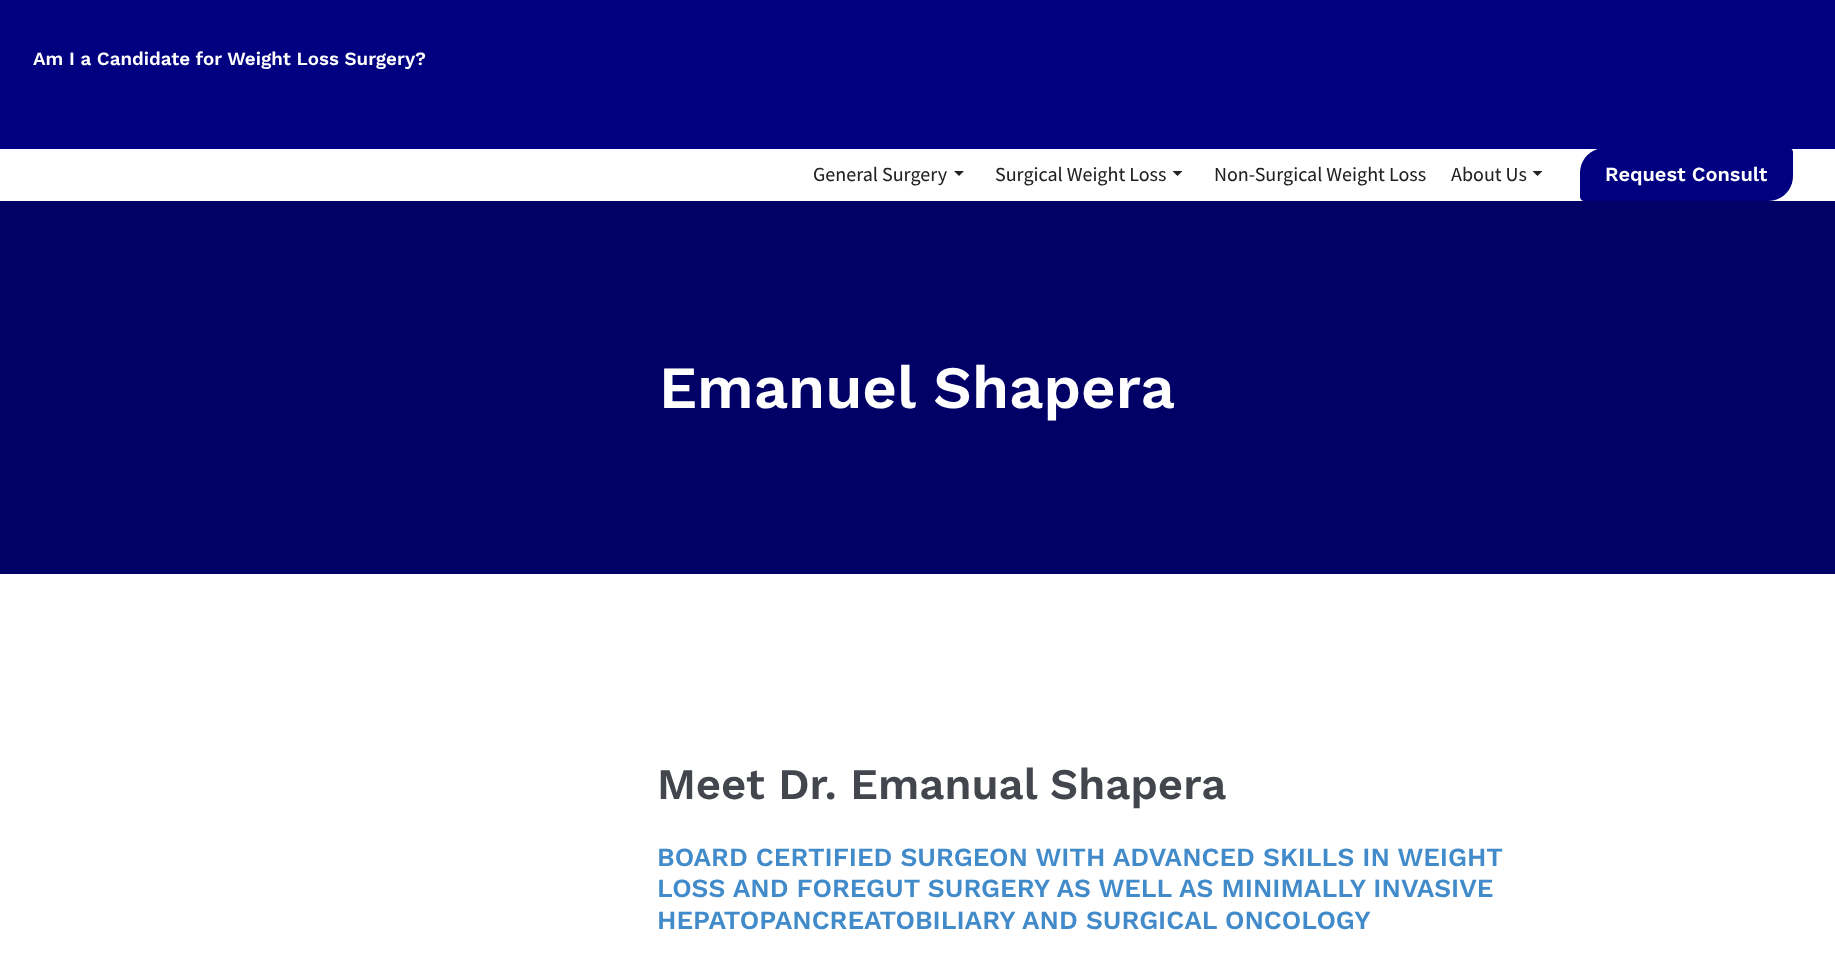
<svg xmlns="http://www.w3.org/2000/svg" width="1835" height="972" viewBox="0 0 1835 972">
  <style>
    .t1 { font: 600 18.75px Work Sans; fill: #fff; }
    .t2 { font: 500 20px Assistant; fill: #222; }
    .t3 { font: 600 20px Work Sans; fill: #fff; }
    .t4 { font: 600 60px Work Sans; fill: #fff; }
    .t5 { font: 600 43.75px Work Sans; fill: #43474d; }
    .t6 { font: 600 26.25px Work Sans; fill: #428bca; }
  </style>
  <rect width="100%" height="100%" fill="#fff"/>
  <rect x="0" y="0" width="1835" height="149" fill="#000080"/>
  <text x="33" y="65" class="t1">Am I a Candidate for Weight Loss Surgery?</text>
  <text x="813" y="181" class="t2">General Surgery</text>
  <path d="M954 171H964L959 176Z" fill="#222"/>
  <text x="995" y="181" class="t2">Surgical Weight Loss</text>
  <path d="M1172.5 171H1182.5L1177.5 176Z" fill="#222"/>
  <text x="1214" y="181" class="t2">Non-Surgical Weight Loss</text>
  <text x="1451" y="181" class="t2">About Us</text>
  <path d="M1532.5 171H1542.5L1537.5 176Z" fill="#222"/>
  <path d="M1605 148H1789C1791 148 1793 150 1793 152V176C1793 190 1782 201 1768 201H1584C1582 201 1580 199 1580 197V173C1580 159 1591 148 1605 148Z" fill="#000080"/>
  <text x="1605" y="181" class="t3">Request Consult</text>
  <rect x="0" y="201" width="1835" height="373" fill="#006"/>
  <text x="659" y="408" class="t4">Emanuel Shapera</text>
  <text x="657" y="799" class="t5">Meet Dr. Emanual Shapera</text>
  <text x="657" y="866" class="t6">BOARD CERTIFIED SURGEON WITH ADVANCED SKILLS IN WEIGHT</text>
  <text x="657" y="897" class="t6">LOSS AND FOREGUT SURGERY AS WELL AS MINIMALLY INVASIVE</text>
  <text x="657" y="929" class="t6">HEPATOPANCREATOBILIARY AND SURGICAL ONCOLOGY</text>
</svg>
